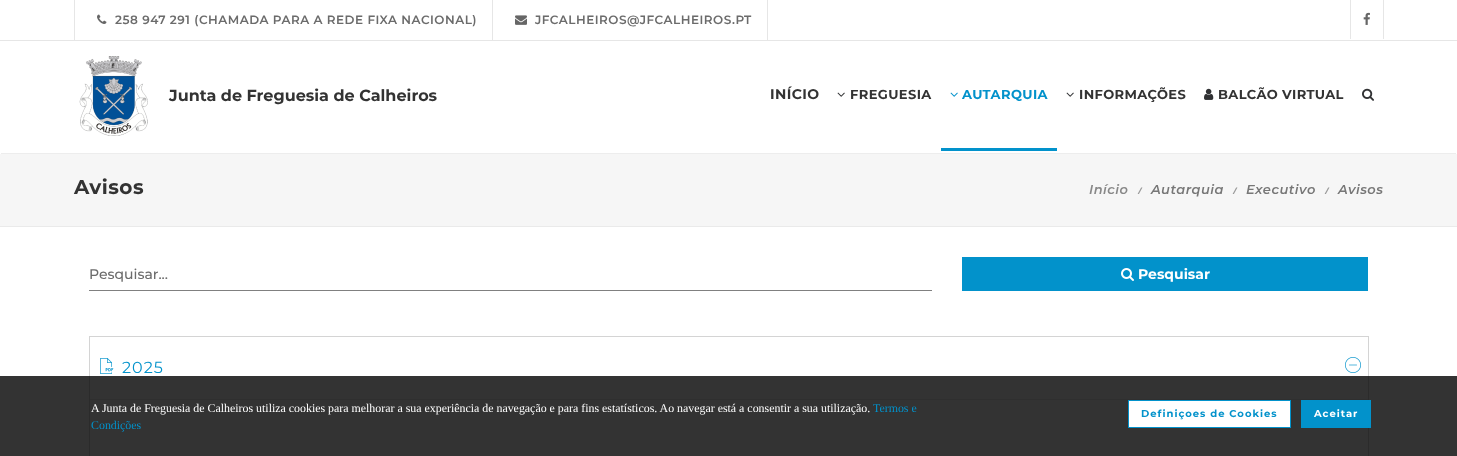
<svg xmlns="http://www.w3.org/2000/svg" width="1457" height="456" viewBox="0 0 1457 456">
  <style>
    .t1 { font: 600 12px Montserrat; letter-spacing: 0.5px; fill: #6b6b6b; }
    .t2 { font: bold 16px Montserrat; fill: #333; }
    .t3 { font: bold 14px Montserrat; letter-spacing: 0.4px; fill: #333; }
    .t4 { font: bold 13px Montserrat; letter-spacing: 0.4px; fill: #333; }
    .t5 { font: bold 13px Montserrat; letter-spacing: 0.4px; fill: #0292cb; }
    .t6 { font: bold 20px Montserrat; letter-spacing: 0.5px; fill: #333; }
    .t7 { font: italic 600 13px Montserrat; letter-spacing: 0.5px; fill: #888; }
    .t8 { font: italic bold 9px Open Sans; letter-spacing: 0.5px; fill: #999; }
    .t9 { font: italic 600 13px Montserrat; letter-spacing: 0.5px; fill: #777; }
    .t10 { font: 500 14px Montserrat; fill: #6b6b6b; }
    .t11 { font: bold 14px Montserrat; fill: #fff; }
    .t12 { font: 16px Montserrat; letter-spacing: 1px; fill: #0292cb; }
    .t13 { font: 11.9px Liberation Serif; fill: #fff; }
    .t14 { font: 11.9px Liberation Serif; fill: #0292cb; }
    .t15 { font: bold 10px Montserrat; letter-spacing: 1px; fill: #0292cb; }
    .t16 { font: bold 10px Montserrat; letter-spacing: 1px; fill: #fff; }
  </style>
  <rect width="100%" height="100%" fill="#f6f6f6"/>
  <rect x="0" y="0" width="1457" height="154" fill="#fff"/>
  <rect x="0" y="40" width="1457" height="1" fill="#e6e6e6"/>
  <rect x="74" y="0" width="1" height="40" fill="#e6e6e6"/>
  <image x="97" y="14" width="10" height="10" href="images/1.png"/>
  <text x="115" y="24" class="t1">258 947 291 (CHAMADA PARA A REDE FIXA NACIONAL)</text>
  <rect x="767" y="0" width="1" height="40" fill="#e6e6e6"/>
  <rect x="492" y="0" width="1" height="40" fill="#e6e6e6"/>
  <image x="515" y="15" width="12" height="10" href="images/2.png"/>
  <text x="535" y="24" class="t1">JFCALHEIROS@JFCALHEIROS.PT</text>
  <rect x="1383" y="0" width="1" height="39" fill="#e6e6e6"/>
  <rect x="1350" y="0" width="1" height="39" fill="#e6e6e6"/>
  <image x="1363" y="12" width="7" height="13" href="images/3.png"/>
  <rect x="1" y="153" width="1455" height="1" fill="#ededed"/>
  <image x="79" y="56" width="69" height="80" href="images/4.png"/>
  <text x="169" y="101" class="t2">Junta de Freguesia de Calheiros</text>
  <text x="770" y="99" class="t3">INÍCIO</text>
  <image x="837" y="92" width="8" height="5" href="images/5.png"/>
  <text x="850" y="99" class="t4">FREGUESIA</text>
  <rect x="941" y="148" width="116" height="3" fill="#0292cb"/>
  <image x="950" y="92" width="8" height="5" href="images/6.png"/>
  <text x="962" y="99" class="t5">AUTARQUIA</text>
  <image x="1066" y="92" width="8" height="5" href="images/5.png"/>
  <text x="1079" y="99" class="t4">INFORMAÇÕES</text>
  <image x="1204" y="88" width="10" height="12" href="images/7.png"/>
  <text x="1218" y="99" class="t4">BALCÃO VIRTUAL</text>
  <image x="1362" y="88" width="12" height="13" href="images/8.png"/>
  <rect x="0" y="226" width="1457" height="1" fill="#eaeaea"/>
  <text x="74" y="194" class="t6">Avisos</text>
  <text x="1089" y="194" class="t7">Início</text>
  <text x="1138" y="194" class="t8">/</text>
  <text x="1151" y="194" class="t9">Autarquia</text>
  <text x="1233" y="194" class="t8">/</text>
  <text x="1246" y="194" class="t9">Executivo</text>
  <text x="1325" y="194" class="t8">/</text>
  <text x="1338" y="194" class="t9">Avisos</text>
  <rect x="0" y="227" width="1457" height="229" fill="#fff"/>
  <rect x="89" y="290" width="843" height="1" fill="#808080"/>
  <text x="89" y="279" class="t10">Pesquisar...</text>
  <rect x="962" y="257" width="406" height="34" fill="#0292cb"/>
  <image x="1121" y="268" width="13" height="13" href="images/9.png"/>
  <text x="1138" y="279" class="t11">Pesquisar</text>
  <rect x="89.5" y="336.5" width="1279" height="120" fill="none" stroke="#d4d4d4"/>
  <rect x="90" y="399" width="1278" height="1" fill="#e8e8e9"/>
  <image x="100" y="358" width="14" height="16" href="images/10.png"/>
  <text x="122" y="373" class="t12">2025</text>
  <image x="1345" y="357" width="16" height="16" href="images/11.png"/>
  <rect x="0" y="376" width="1457" height="80" fill="#000000cc"/>
  <text x="91" y="412" class="t13">A Junta de Freguesia de Calheiros utiliza cookies para melhorar a sua experiência de navegação e para fins estatísticos. Ao navegar está a consentir a sua utilização.</text>
  <text x="873" y="412" class="t14">Termos e</text>
  <text x="91" y="429" class="t14">Condições</text>
  <rect x="1128.5" y="400.5" width="162" height="27" fill="#fff" stroke="#0292cb"/>
  <text x="1141" y="417" class="t15">Definiçoes de Cookies</text>
  <rect x="1301" y="400" width="70" height="28" fill="#0292cb"/>
  <text x="1314" y="417" class="t16">Aceitar</text>
</svg>
